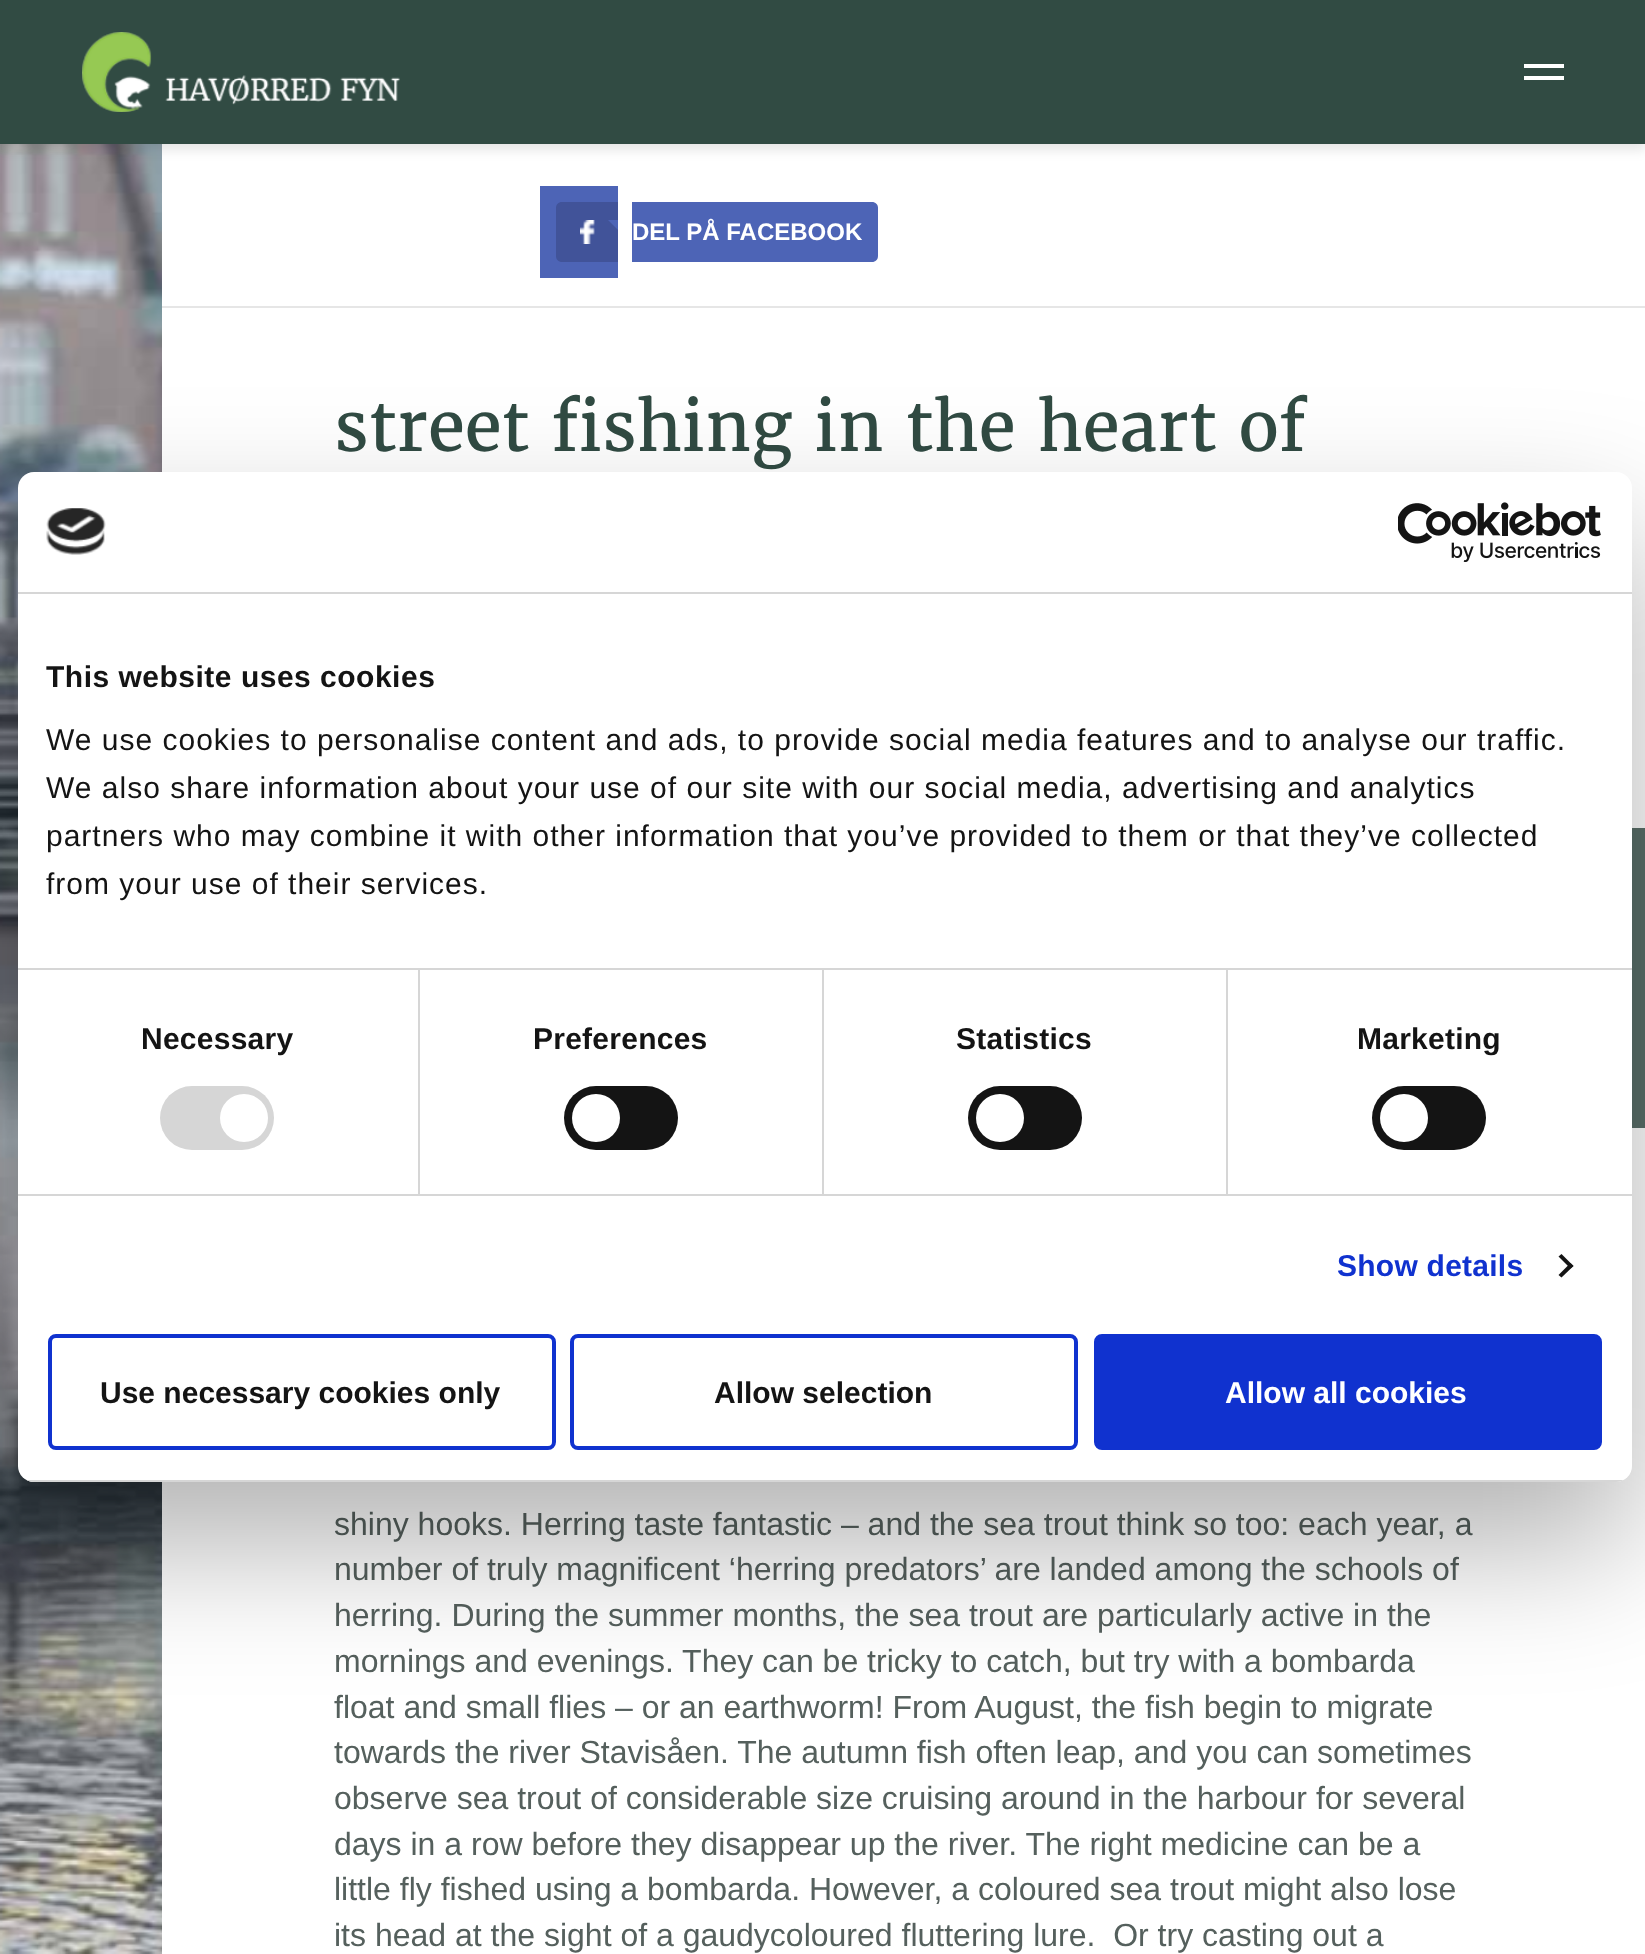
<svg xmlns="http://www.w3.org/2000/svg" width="1645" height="1954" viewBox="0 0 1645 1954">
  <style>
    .t1 { font: bold 24px Liberation Sans; fill: #fff; }
    .t2 { font: 68px Merriweather; fill: #314b43; }
    .t3 { font: 32px Liberation Sans; fill: #55605d; }
    .t4 { font: bold 30px Liberation Sans; letter-spacing: 0.5px; fill: #141414; }
    .t5 { font: 30px Liberation Sans; letter-spacing: 1px; fill: #141414; }
    .t6 { font: bold 30px Liberation Sans; letter-spacing: 0.25px; fill: #141414; }
    .t7 { font: bold 30px Liberation Sans; letter-spacing: 0.25px; fill: #1032cf; }
    .t8 { font: bold 30px Liberation Sans; fill: #141414; }
    .t9 { font: bold 30px Liberation Sans; fill: #fff; }
  </style>
  <defs>
    <clipPath id="clip1"><rect x="18" y="472" width="1614" height="1010" rx="16"/></clipPath>
  </defs>
  <rect width="100%" height="100%" fill="#fff"/>
  <image x="0" y="144" width="162" height="1810" href="images/2.png"/>
  <rect x="0" y="6" width="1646" height="144" fill="#0000001a" filter="blur(6px)"/>
  <rect x="0" y="0" width="1645" height="144" fill="#314b43"/>
  <image x="82" y="32" width="318" height="80" href="images/1.png"/>
  <rect x="1524" y="64" width="40" height="4" fill="#fff"/>
  <rect x="1524" y="76" width="40" height="4" fill="#fff"/>
  <rect x="162" y="306" width="1483" height="2" fill="#e6e6e6"/>
  <rect x="540" y="186" width="78" height="92" fill="#4d64b6"/>
  <path d="M632 202H872C875.5 202 878 204.5 878 208V256C878 259.5 875.5 262 872 262H632Z" fill="#4d64b6"/>
  <path d="M562 202H618V262H562C558.5 262 556 259.5 556 256V208C556 204.5 558.5 202 562 202Z" fill="#415399"/>
  <image x="580" y="220" width="15" height="24" href="images/3.png"/>
  <path d="M618 220V230L608 220Z" fill="#4d64b6"/>
  <text x="632" y="240" class="t1">DEL PÅ FACEBOOK</text>
  <text x="334" y="451" class="t2">street fishing in the heart of</text>
  <text x="334" y="1535" class="t3">shiny hooks. Herring taste fantastic – and the sea trout think so too: each year, a</text>
  <text x="334" y="1580" class="t3">number of truly magnificent ‘herring predators’ are landed among the schools of</text>
  <text x="334" y="1626" class="t3">herring. During the summer months, the sea trout are particularly active in the</text>
  <text x="334" y="1672" class="t3">mornings and evenings. They can be tricky to catch, but try with a bombarda</text>
  <text x="334" y="1718" class="t3">float and small flies – or an earthworm! From August, the fish begin to migrate</text>
  <text x="334" y="1763" class="t3">towards the river Stavisåen. The autumn fish often leap, and you can sometimes</text>
  <text x="334" y="1809" class="t3">observe sea trout of considerable size cruising around in the harbour for several</text>
  <text x="334" y="1855" class="t3">days in a row before they disappear up the river. The right medicine can be a</text>
  <text x="334" y="1900" class="t3">little fly fished using a bombarda. However, a coloured sea trout might also lose</text>
  <text x="334" y="1946" class="t3" xml:space="preserve">its head at the sight of a gaudycoloured fluttering lure.  Or try casting out a</text>
  <rect x="1632" y="828" width="13" height="300" fill="#5a6f69"/>
  <rect x="18" y="536" width="1614" height="1010" rx="16" fill="#0000004d" filter="blur(68px)"/>
  <rect x="18" y="472" width="1614" height="1010" rx="16" fill="#fff"/>
  <rect x="18" y="592" width="1614" height="2" fill="#d6d6d6"/>
  <image x="46" y="508" width="60" height="47" href="images/4.png"/>
  <image x="1398" y="502" width="203" height="60" href="images/5.png"/>
  <rect x="18" y="968" width="1614" height="2" fill="#d6d6d6"/>
  <text x="46" y="687" class="t4">This website uses cookies</text>
  <text x="46" y="750" class="t5">We use cookies to personalise content and ads, to provide social media features and to analyse our traffic.</text>
  <text x="46" y="798" class="t5">We also share information about your use of our site with our social media, advertising and analytics</text>
  <text x="46" y="846" class="t5">partners who may combine it with other information that you’ve provided to them or that they’ve collected</text>
  <text x="46" y="894" class="t5">from your use of their services.</text>
  <rect x="18" y="1194" width="1614" height="2" fill="#d6d6d6"/>
  <rect x="418" y="970" width="2" height="224" fill="#d6d6d6"/>
  <text x="141" y="1049" class="t6">Necessary</text>
  <rect x="160" y="1086" width="114" height="64" rx="32" fill="#d6d6d6"/>
  <circle cx="244" cy="1118" r="24" fill="#fff"/>
  <rect x="822" y="970" width="2" height="224" fill="#d6d6d6"/>
  <text x="533" y="1049" class="t6">Preferences</text>
  <rect x="564" y="1086" width="114" height="64" rx="32" fill="#141414"/>
  <circle cx="596" cy="1118" r="24" fill="#fff"/>
  <rect x="1226" y="970" width="2" height="224" fill="#d6d6d6"/>
  <text x="956" y="1049" class="t6">Statistics</text>
  <rect x="968" y="1086" width="114" height="64" rx="32" fill="#141414"/>
  <circle cx="1000" cy="1118" r="24" fill="#fff"/>
  <text x="1357" y="1049" class="t6">Marketing</text>
  <rect x="1372" y="1086" width="114" height="64" rx="32" fill="#141414"/>
  <circle cx="1404" cy="1118" r="24" fill="#fff"/>
  <text x="1337" y="1276" class="t7">Show details</text>
  <path d="M1561.5 1254L1573.5 1266L1570.5 1268.5L1558.5 1256.5Z" fill="#141414"/>
  <path d="M1570.5 1263L1573.5 1266L1561.5 1277.5L1558.5 1275Z" fill="#141414"/>
  <g clip-path="url(#clip1)">
    <rect x="18" y="1480" width="1614" height="2" fill="#d6d6d6"/>
  </g>
  <rect x="50" y="1336" width="504" height="112" rx="6" fill="none" stroke="#1032cf" stroke-width="4"/>
  <text x="100" y="1403" class="t8">Use necessary cookies only</text>
  <rect x="572" y="1336" width="504" height="112" rx="6" fill="none" stroke="#1032cf" stroke-width="4"/>
  <text x="714" y="1403" class="t8">Allow selection</text>
  <rect x="1096" y="1336" width="504" height="112" rx="6" fill="#1032cf" stroke="#1032cf" stroke-width="4"/>
  <text x="1225" y="1403" class="t9">Allow all cookies</text>
</svg>
